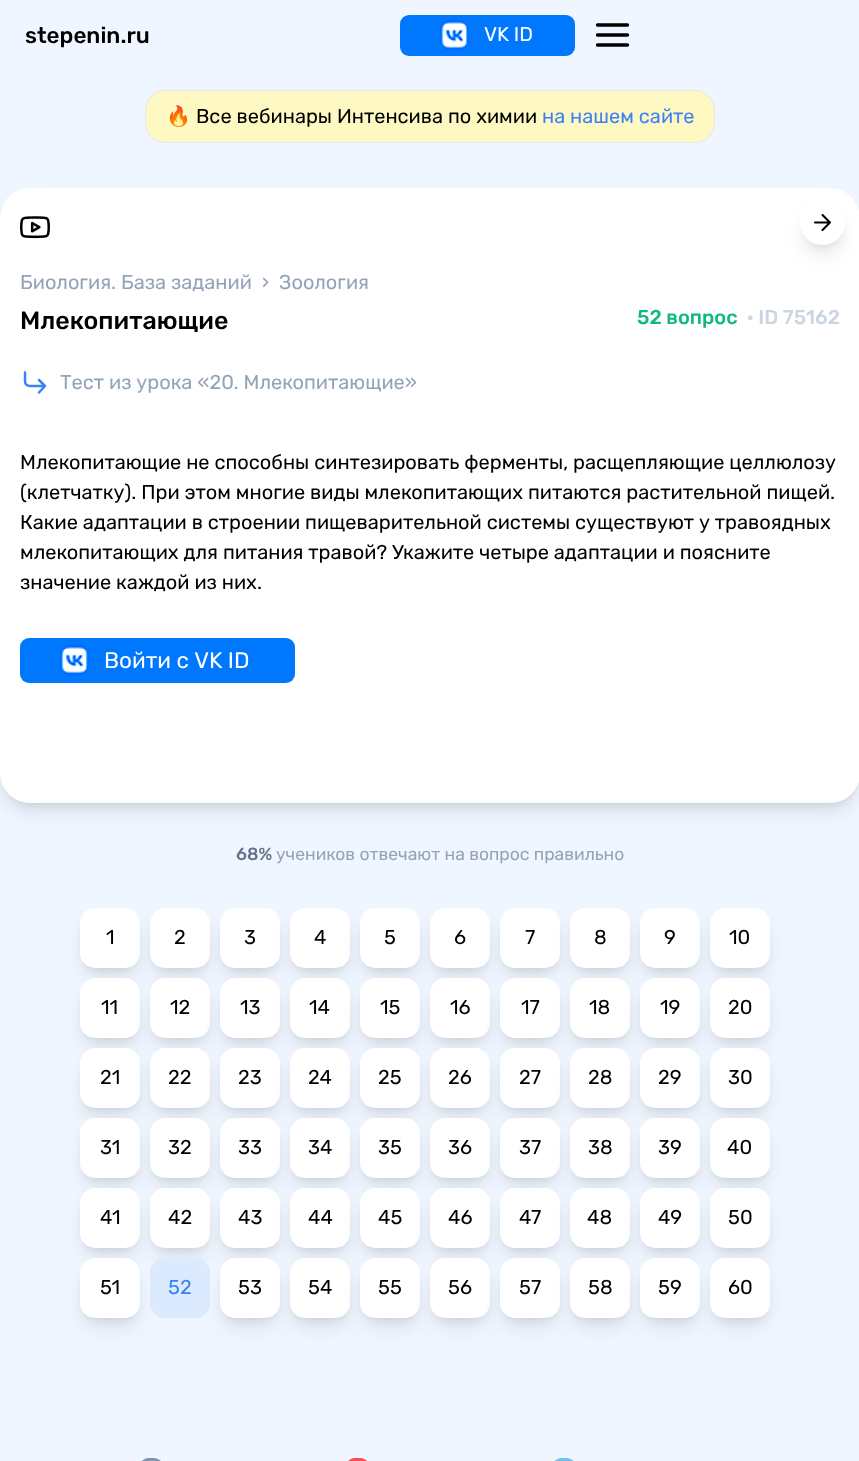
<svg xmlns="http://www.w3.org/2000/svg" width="859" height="1461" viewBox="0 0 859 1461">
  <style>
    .t1 { font: 500 22.5px Rubik; fill: #000; }
    .t2 { font: 20px Rubik; fill: #fff; }
    .t3 { font: 20px Noto Color Emoji; fill: #000; }
    .t4 { font: 20px Rubik; fill: #000; }
    .t5 { font: 20px Rubik; fill: #3b82f6; }
    .t6 { font: 20px Rubik; fill: #94a3b8; }
    .t7 { font: 500 25px Rubik; fill: #000; }
    .t8 { font: 500 20px Rubik; fill: #10b981; }
    .t9 { font: 500 20px Rubik; fill: #cbd5e1; }
    .t10 { font: 22.5px Rubik; fill: #fff; }
    .t11 { font: 500 17.5px Rubik; fill: #64748b; }
    .t12 { font: 17.5px Rubik; fill: #94a3b8; }
  </style>
  <defs>
    <clipPath id="clip1"><path d="M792 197H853V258H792ZM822.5 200C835 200 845 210 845 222.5C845 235 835 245 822.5 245C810 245 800 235 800 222.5C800 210 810 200 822.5 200Z" clip-rule="evenodd"/></clipPath>
    <clipPath id="clip2"><path d="M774 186H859V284H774ZM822.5 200C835 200 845 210 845 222.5C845 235 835 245 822.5 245C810 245 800 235 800 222.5C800 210 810 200 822.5 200Z" clip-rule="evenodd"/></clipPath>
  </defs>
  <rect width="100%" height="100%" fill="#eff6ff"/>
  <text x="25" y="43" class="t1">stepenin.ru</text>
  <rect x="400" y="15" width="175" height="41" rx="9" fill="#07f"/>
  <image x="440" y="20" width="29" height="30" href="images/1.png"/>
  <text x="484" y="41" class="t2">VK ID</text>
  <path d="M597.5 35H627.5M597.5 25H627.5M597.5 45H627.5" fill="none" stroke="#000" stroke-width="3.3" stroke-linecap="round" stroke-linejoin="round"/>
  <rect x="145.5" y="90.5" width="569" height="52" rx="19.5" fill="#fef9c3" stroke="#e5e7eb"/>
  <text x="166" y="123" class="t3">🔥</text>
  <text x="196" y="123" class="t4">Все вебинары Интенсива по химии</text>
  <text x="542" y="123" class="t5">на нашем сайте</text>
  <rect x="5" y="198" width="850" height="605" rx="25" fill="#0000001a" filter="blur(4px)"/>
  <rect x="4" y="204" width="852" height="607" rx="26" fill="#0000001a" filter="blur(9.5px)"/>
  <rect x="0" y="188" width="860" height="615" rx="30" fill="#fff"/>
  <image x="20" y="216" width="30" height="23" href="images/2.png"/>
  <text x="20" y="289" class="t6">Биология. База заданий</text>
  <text x="262" y="289" class="t6">›</text>
  <text x="279" y="289" class="t6">Зоология</text>
  <text x="20" y="329" class="t7">Млекопитающие</text>
  <text x="637" y="324" class="t8">52 вопрос</text>
  <text x="747" y="324" class="t9">· ID 75162</text>
  <path d="M39 380L45 386L39 392.5M25 372.5V381C25 384 27 386 30 386H45" fill="none" stroke="#3b82f6" stroke-width="2.5" stroke-linecap="round" stroke-linejoin="round"/>
  <text x="60" y="389" class="t6">Тест из урока «20. Млекопитающие»</text>
  <g clip-path="url(#clip1)">
    <rect x="805" y="210" width="35" height="35" rx="17.5" fill="#0000001a" filter="blur(4px)"/>
  </g>
  <g clip-path="url(#clip2)">
    <rect x="804" y="216" width="37" height="38" rx="18.5" fill="#0000001a" filter="blur(9.5px)"/>
  </g>
  <path d="M815 222.5H830M822.5 215L830 222.5L822.5 230" fill="none" stroke="#000" stroke-width="2.1" stroke-linecap="round" stroke-linejoin="round"/>
  <text x="20" y="469" class="t4">Млекопитающие не способны синтезировать ферменты, расщепляющие целлюлозу</text>
  <text x="20" y="499" class="t4">(клетчатку). При этом многие виды млекопитающих питаются растительной пищей.</text>
  <text x="20" y="529" class="t4">Какие адаптации в строении пищеварительной системы существуют у травоядных</text>
  <text x="20" y="559" class="t4">млекопитающих для питания травой? Укажите четыре адаптации и поясните</text>
  <text x="20" y="589" class="t4">значение каждой из них.</text>
  <rect x="20" y="638" width="275" height="45" rx="9" fill="#07f"/>
  <image x="60" y="645" width="29" height="30" href="images/3.png"/>
  <text x="104" y="668" class="t10">Войти с VK ID</text>
  <text x="236" y="860" class="t11">68%</text>
  <text x="276" y="860" class="t12">учеников отвечают на вопрос правильно</text>
  <rect x="85" y="918" width="50" height="50" rx="10" fill="#0000001a" filter="blur(4px)"/>
  <rect x="84" y="924" width="52" height="52" rx="11" fill="#0000001a" filter="blur(9.5px)"/>
  <rect x="80" y="908" width="60" height="60" rx="15" fill="#fff"/>
  <text x="106" y="944" class="t4">1</text>
  <rect x="155" y="918" width="50" height="50" rx="10" fill="#0000001a" filter="blur(4px)"/>
  <rect x="154" y="924" width="52" height="52" rx="11" fill="#0000001a" filter="blur(9.5px)"/>
  <rect x="150" y="908" width="60" height="60" rx="15" fill="#fff"/>
  <text x="174" y="944" class="t4">2</text>
  <rect x="225" y="918" width="50" height="50" rx="10" fill="#0000001a" filter="blur(4px)"/>
  <rect x="224" y="924" width="52" height="52" rx="11" fill="#0000001a" filter="blur(9.5px)"/>
  <rect x="220" y="908" width="60" height="60" rx="15" fill="#fff"/>
  <text x="244" y="944" class="t4">3</text>
  <rect x="295" y="918" width="50" height="50" rx="10" fill="#0000001a" filter="blur(4px)"/>
  <rect x="294" y="924" width="52" height="52" rx="11" fill="#0000001a" filter="blur(9.5px)"/>
  <rect x="290" y="908" width="60" height="60" rx="15" fill="#fff"/>
  <text x="314" y="944" class="t4">4</text>
  <rect x="365" y="918" width="50" height="50" rx="10" fill="#0000001a" filter="blur(4px)"/>
  <rect x="364" y="924" width="52" height="52" rx="11" fill="#0000001a" filter="blur(9.5px)"/>
  <rect x="360" y="908" width="60" height="60" rx="15" fill="#fff"/>
  <text x="384" y="944" class="t4">5</text>
  <rect x="435" y="918" width="50" height="50" rx="10" fill="#0000001a" filter="blur(4px)"/>
  <rect x="434" y="924" width="52" height="52" rx="11" fill="#0000001a" filter="blur(9.5px)"/>
  <rect x="430" y="908" width="60" height="60" rx="15" fill="#fff"/>
  <text x="454" y="944" class="t4">6</text>
  <rect x="505" y="918" width="50" height="50" rx="10" fill="#0000001a" filter="blur(4px)"/>
  <rect x="504" y="924" width="52" height="52" rx="11" fill="#0000001a" filter="blur(9.5px)"/>
  <rect x="500" y="908" width="60" height="60" rx="15" fill="#fff"/>
  <text x="525" y="944" class="t4">7</text>
  <rect x="575" y="918" width="50" height="50" rx="10" fill="#0000001a" filter="blur(4px)"/>
  <rect x="574" y="924" width="52" height="52" rx="11" fill="#0000001a" filter="blur(9.5px)"/>
  <rect x="570" y="908" width="60" height="60" rx="15" fill="#fff"/>
  <text x="594" y="944" class="t4">8</text>
  <rect x="645" y="918" width="50" height="50" rx="10" fill="#0000001a" filter="blur(4px)"/>
  <rect x="644" y="924" width="52" height="52" rx="11" fill="#0000001a" filter="blur(9.5px)"/>
  <rect x="640" y="908" width="60" height="60" rx="15" fill="#fff"/>
  <text x="664" y="944" class="t4">9</text>
  <rect x="715" y="918" width="50" height="50" rx="10" fill="#0000001a" filter="blur(4px)"/>
  <rect x="714" y="924" width="52" height="52" rx="11" fill="#0000001a" filter="blur(9.5px)"/>
  <rect x="710" y="908" width="60" height="60" rx="15" fill="#fff"/>
  <text x="729" y="944" class="t4">10</text>
  <rect x="85" y="988" width="50" height="50" rx="10" fill="#0000001a" filter="blur(4px)"/>
  <rect x="84" y="994" width="52" height="52" rx="11" fill="#0000001a" filter="blur(9.5px)"/>
  <rect x="80" y="978" width="60" height="60" rx="15" fill="#fff"/>
  <text x="101" y="1014" class="t4">11</text>
  <rect x="155" y="988" width="50" height="50" rx="10" fill="#0000001a" filter="blur(4px)"/>
  <rect x="154" y="994" width="52" height="52" rx="11" fill="#0000001a" filter="blur(9.5px)"/>
  <rect x="150" y="978" width="60" height="60" rx="15" fill="#fff"/>
  <text x="170" y="1014" class="t4">12</text>
  <rect x="225" y="988" width="50" height="50" rx="10" fill="#0000001a" filter="blur(4px)"/>
  <rect x="224" y="994" width="52" height="52" rx="11" fill="#0000001a" filter="blur(9.5px)"/>
  <rect x="220" y="978" width="60" height="60" rx="15" fill="#fff"/>
  <text x="240" y="1014" class="t4">13</text>
  <rect x="295" y="988" width="50" height="50" rx="10" fill="#0000001a" filter="blur(4px)"/>
  <rect x="294" y="994" width="52" height="52" rx="11" fill="#0000001a" filter="blur(9.5px)"/>
  <rect x="290" y="978" width="60" height="60" rx="15" fill="#fff"/>
  <text x="309" y="1014" class="t4">14</text>
  <rect x="365" y="988" width="50" height="50" rx="10" fill="#0000001a" filter="blur(4px)"/>
  <rect x="364" y="994" width="52" height="52" rx="11" fill="#0000001a" filter="blur(9.5px)"/>
  <rect x="360" y="978" width="60" height="60" rx="15" fill="#fff"/>
  <text x="380" y="1014" class="t4">15</text>
  <rect x="435" y="988" width="50" height="50" rx="10" fill="#0000001a" filter="blur(4px)"/>
  <rect x="434" y="994" width="52" height="52" rx="11" fill="#0000001a" filter="blur(9.5px)"/>
  <rect x="430" y="978" width="60" height="60" rx="15" fill="#fff"/>
  <text x="450" y="1014" class="t4">16</text>
  <rect x="505" y="988" width="50" height="50" rx="10" fill="#0000001a" filter="blur(4px)"/>
  <rect x="504" y="994" width="52" height="52" rx="11" fill="#0000001a" filter="blur(9.5px)"/>
  <rect x="500" y="978" width="60" height="60" rx="15" fill="#fff"/>
  <text x="521" y="1014" class="t4">17</text>
  <rect x="575" y="988" width="50" height="50" rx="10" fill="#0000001a" filter="blur(4px)"/>
  <rect x="574" y="994" width="52" height="52" rx="11" fill="#0000001a" filter="blur(9.5px)"/>
  <rect x="570" y="978" width="60" height="60" rx="15" fill="#fff"/>
  <text x="589" y="1014" class="t4">18</text>
  <rect x="645" y="988" width="50" height="50" rx="10" fill="#0000001a" filter="blur(4px)"/>
  <rect x="644" y="994" width="52" height="52" rx="11" fill="#0000001a" filter="blur(9.5px)"/>
  <rect x="640" y="978" width="60" height="60" rx="15" fill="#fff"/>
  <text x="660" y="1014" class="t4">19</text>
  <rect x="715" y="988" width="50" height="50" rx="10" fill="#0000001a" filter="blur(4px)"/>
  <rect x="714" y="994" width="52" height="52" rx="11" fill="#0000001a" filter="blur(9.5px)"/>
  <rect x="710" y="978" width="60" height="60" rx="15" fill="#fff"/>
  <text x="728" y="1014" class="t4">20</text>
  <rect x="85" y="1058" width="50" height="50" rx="10" fill="#0000001a" filter="blur(4px)"/>
  <rect x="84" y="1064" width="52" height="52" rx="11" fill="#0000001a" filter="blur(9.5px)"/>
  <rect x="80" y="1048" width="60" height="60" rx="15" fill="#fff"/>
  <text x="100" y="1084" class="t4">21</text>
  <rect x="155" y="1058" width="50" height="50" rx="10" fill="#0000001a" filter="blur(4px)"/>
  <rect x="154" y="1064" width="52" height="52" rx="11" fill="#0000001a" filter="blur(9.5px)"/>
  <rect x="150" y="1048" width="60" height="60" rx="15" fill="#fff"/>
  <text x="168" y="1084" class="t4">22</text>
  <rect x="225" y="1058" width="50" height="50" rx="10" fill="#0000001a" filter="blur(4px)"/>
  <rect x="224" y="1064" width="52" height="52" rx="11" fill="#0000001a" filter="blur(9.5px)"/>
  <rect x="220" y="1048" width="60" height="60" rx="15" fill="#fff"/>
  <text x="238" y="1084" class="t4">23</text>
  <rect x="295" y="1058" width="50" height="50" rx="10" fill="#0000001a" filter="blur(4px)"/>
  <rect x="294" y="1064" width="52" height="52" rx="11" fill="#0000001a" filter="blur(9.5px)"/>
  <rect x="290" y="1048" width="60" height="60" rx="15" fill="#fff"/>
  <text x="308" y="1084" class="t4">24</text>
  <rect x="365" y="1058" width="50" height="50" rx="10" fill="#0000001a" filter="blur(4px)"/>
  <rect x="364" y="1064" width="52" height="52" rx="11" fill="#0000001a" filter="blur(9.5px)"/>
  <rect x="360" y="1048" width="60" height="60" rx="15" fill="#fff"/>
  <text x="378" y="1084" class="t4">25</text>
  <rect x="435" y="1058" width="50" height="50" rx="10" fill="#0000001a" filter="blur(4px)"/>
  <rect x="434" y="1064" width="52" height="52" rx="11" fill="#0000001a" filter="blur(9.5px)"/>
  <rect x="430" y="1048" width="60" height="60" rx="15" fill="#fff"/>
  <text x="448" y="1084" class="t4">26</text>
  <rect x="505" y="1058" width="50" height="50" rx="10" fill="#0000001a" filter="blur(4px)"/>
  <rect x="504" y="1064" width="52" height="52" rx="11" fill="#0000001a" filter="blur(9.5px)"/>
  <rect x="500" y="1048" width="60" height="60" rx="15" fill="#fff"/>
  <text x="519" y="1084" class="t4">27</text>
  <rect x="575" y="1058" width="50" height="50" rx="10" fill="#0000001a" filter="blur(4px)"/>
  <rect x="574" y="1064" width="52" height="52" rx="11" fill="#0000001a" filter="blur(9.5px)"/>
  <rect x="570" y="1048" width="60" height="60" rx="15" fill="#fff"/>
  <text x="588" y="1084" class="t4">28</text>
  <rect x="645" y="1058" width="50" height="50" rx="10" fill="#0000001a" filter="blur(4px)"/>
  <rect x="644" y="1064" width="52" height="52" rx="11" fill="#0000001a" filter="blur(9.5px)"/>
  <rect x="640" y="1048" width="60" height="60" rx="15" fill="#fff"/>
  <text x="658" y="1084" class="t4">29</text>
  <rect x="715" y="1058" width="50" height="50" rx="10" fill="#0000001a" filter="blur(4px)"/>
  <rect x="714" y="1064" width="52" height="52" rx="11" fill="#0000001a" filter="blur(9.5px)"/>
  <rect x="710" y="1048" width="60" height="60" rx="15" fill="#fff"/>
  <text x="728" y="1084" class="t4">30</text>
  <rect x="85" y="1128" width="50" height="50" rx="10" fill="#0000001a" filter="blur(4px)"/>
  <rect x="84" y="1134" width="52" height="52" rx="11" fill="#0000001a" filter="blur(9.5px)"/>
  <rect x="80" y="1118" width="60" height="60" rx="15" fill="#fff"/>
  <text x="100" y="1154" class="t4">31</text>
  <rect x="155" y="1128" width="50" height="50" rx="10" fill="#0000001a" filter="blur(4px)"/>
  <rect x="154" y="1134" width="52" height="52" rx="11" fill="#0000001a" filter="blur(9.5px)"/>
  <rect x="150" y="1118" width="60" height="60" rx="15" fill="#fff"/>
  <text x="168" y="1154" class="t4">32</text>
  <rect x="225" y="1128" width="50" height="50" rx="10" fill="#0000001a" filter="blur(4px)"/>
  <rect x="224" y="1134" width="52" height="52" rx="11" fill="#0000001a" filter="blur(9.5px)"/>
  <rect x="220" y="1118" width="60" height="60" rx="15" fill="#fff"/>
  <text x="238" y="1154" class="t4">33</text>
  <rect x="295" y="1128" width="50" height="50" rx="10" fill="#0000001a" filter="blur(4px)"/>
  <rect x="294" y="1134" width="52" height="52" rx="11" fill="#0000001a" filter="blur(9.5px)"/>
  <rect x="290" y="1118" width="60" height="60" rx="15" fill="#fff"/>
  <text x="308" y="1154" class="t4">34</text>
  <rect x="365" y="1128" width="50" height="50" rx="10" fill="#0000001a" filter="blur(4px)"/>
  <rect x="364" y="1134" width="52" height="52" rx="11" fill="#0000001a" filter="blur(9.5px)"/>
  <rect x="360" y="1118" width="60" height="60" rx="15" fill="#fff"/>
  <text x="378" y="1154" class="t4">35</text>
  <rect x="435" y="1128" width="50" height="50" rx="10" fill="#0000001a" filter="blur(4px)"/>
  <rect x="434" y="1134" width="52" height="52" rx="11" fill="#0000001a" filter="blur(9.5px)"/>
  <rect x="430" y="1118" width="60" height="60" rx="15" fill="#fff"/>
  <text x="448" y="1154" class="t4">36</text>
  <rect x="505" y="1128" width="50" height="50" rx="10" fill="#0000001a" filter="blur(4px)"/>
  <rect x="504" y="1134" width="52" height="52" rx="11" fill="#0000001a" filter="blur(9.5px)"/>
  <rect x="500" y="1118" width="60" height="60" rx="15" fill="#fff"/>
  <text x="519" y="1154" class="t4">37</text>
  <rect x="575" y="1128" width="50" height="50" rx="10" fill="#0000001a" filter="blur(4px)"/>
  <rect x="574" y="1134" width="52" height="52" rx="11" fill="#0000001a" filter="blur(9.5px)"/>
  <rect x="570" y="1118" width="60" height="60" rx="15" fill="#fff"/>
  <text x="588" y="1154" class="t4">38</text>
  <rect x="645" y="1128" width="50" height="50" rx="10" fill="#0000001a" filter="blur(4px)"/>
  <rect x="644" y="1134" width="52" height="52" rx="11" fill="#0000001a" filter="blur(9.5px)"/>
  <rect x="640" y="1118" width="60" height="60" rx="15" fill="#fff"/>
  <text x="658" y="1154" class="t4">39</text>
  <rect x="715" y="1128" width="50" height="50" rx="10" fill="#0000001a" filter="blur(4px)"/>
  <rect x="714" y="1134" width="52" height="52" rx="11" fill="#0000001a" filter="blur(9.5px)"/>
  <rect x="710" y="1118" width="60" height="60" rx="15" fill="#fff"/>
  <text x="727" y="1154" class="t4">40</text>
  <rect x="85" y="1198" width="50" height="50" rx="10" fill="#0000001a" filter="blur(4px)"/>
  <rect x="84" y="1204" width="52" height="52" rx="11" fill="#0000001a" filter="blur(9.5px)"/>
  <rect x="80" y="1188" width="60" height="60" rx="15" fill="#fff"/>
  <text x="100" y="1224" class="t4">41</text>
  <rect x="155" y="1198" width="50" height="50" rx="10" fill="#0000001a" filter="blur(4px)"/>
  <rect x="154" y="1204" width="52" height="52" rx="11" fill="#0000001a" filter="blur(9.5px)"/>
  <rect x="150" y="1188" width="60" height="60" rx="15" fill="#fff"/>
  <text x="168" y="1224" class="t4">42</text>
  <rect x="225" y="1198" width="50" height="50" rx="10" fill="#0000001a" filter="blur(4px)"/>
  <rect x="224" y="1204" width="52" height="52" rx="11" fill="#0000001a" filter="blur(9.5px)"/>
  <rect x="220" y="1188" width="60" height="60" rx="15" fill="#fff"/>
  <text x="238" y="1224" class="t4">43</text>
  <rect x="295" y="1198" width="50" height="50" rx="10" fill="#0000001a" filter="blur(4px)"/>
  <rect x="294" y="1204" width="52" height="52" rx="11" fill="#0000001a" filter="blur(9.5px)"/>
  <rect x="290" y="1188" width="60" height="60" rx="15" fill="#fff"/>
  <text x="308" y="1224" class="t4">44</text>
  <rect x="365" y="1198" width="50" height="50" rx="10" fill="#0000001a" filter="blur(4px)"/>
  <rect x="364" y="1204" width="52" height="52" rx="11" fill="#0000001a" filter="blur(9.5px)"/>
  <rect x="360" y="1188" width="60" height="60" rx="15" fill="#fff"/>
  <text x="378" y="1224" class="t4">45</text>
  <rect x="435" y="1198" width="50" height="50" rx="10" fill="#0000001a" filter="blur(4px)"/>
  <rect x="434" y="1204" width="52" height="52" rx="11" fill="#0000001a" filter="blur(9.5px)"/>
  <rect x="430" y="1188" width="60" height="60" rx="15" fill="#fff"/>
  <text x="448" y="1224" class="t4">46</text>
  <rect x="505" y="1198" width="50" height="50" rx="10" fill="#0000001a" filter="blur(4px)"/>
  <rect x="504" y="1204" width="52" height="52" rx="11" fill="#0000001a" filter="blur(9.5px)"/>
  <rect x="500" y="1188" width="60" height="60" rx="15" fill="#fff"/>
  <text x="519" y="1224" class="t4">47</text>
  <rect x="575" y="1198" width="50" height="50" rx="10" fill="#0000001a" filter="blur(4px)"/>
  <rect x="574" y="1204" width="52" height="52" rx="11" fill="#0000001a" filter="blur(9.5px)"/>
  <rect x="570" y="1188" width="60" height="60" rx="15" fill="#fff"/>
  <text x="587" y="1224" class="t4">48</text>
  <rect x="645" y="1198" width="50" height="50" rx="10" fill="#0000001a" filter="blur(4px)"/>
  <rect x="644" y="1204" width="52" height="52" rx="11" fill="#0000001a" filter="blur(9.5px)"/>
  <rect x="640" y="1188" width="60" height="60" rx="15" fill="#fff"/>
  <text x="658" y="1224" class="t4">49</text>
  <rect x="715" y="1198" width="50" height="50" rx="10" fill="#0000001a" filter="blur(4px)"/>
  <rect x="714" y="1204" width="52" height="52" rx="11" fill="#0000001a" filter="blur(9.5px)"/>
  <rect x="710" y="1188" width="60" height="60" rx="15" fill="#fff"/>
  <text x="728" y="1224" class="t4">50</text>
  <rect x="85" y="1268" width="50" height="50" rx="10" fill="#0000001a" filter="blur(4px)"/>
  <rect x="84" y="1274" width="52" height="52" rx="11" fill="#0000001a" filter="blur(9.5px)"/>
  <rect x="80" y="1258" width="60" height="60" rx="15" fill="#fff"/>
  <text x="100" y="1294" class="t4">51</text>
  <rect x="150" y="1258" width="60" height="60" rx="15" fill="#dbeafe"/>
  <text x="168" y="1294" class="t5">52</text>
  <rect x="225" y="1268" width="50" height="50" rx="10" fill="#0000001a" filter="blur(4px)"/>
  <rect x="224" y="1274" width="52" height="52" rx="11" fill="#0000001a" filter="blur(9.5px)"/>
  <rect x="220" y="1258" width="60" height="60" rx="15" fill="#fff"/>
  <text x="238" y="1294" class="t4">53</text>
  <rect x="295" y="1268" width="50" height="50" rx="10" fill="#0000001a" filter="blur(4px)"/>
  <rect x="294" y="1274" width="52" height="52" rx="11" fill="#0000001a" filter="blur(9.5px)"/>
  <rect x="290" y="1258" width="60" height="60" rx="15" fill="#fff"/>
  <text x="308" y="1294" class="t4">54</text>
  <rect x="365" y="1268" width="50" height="50" rx="10" fill="#0000001a" filter="blur(4px)"/>
  <rect x="364" y="1274" width="52" height="52" rx="11" fill="#0000001a" filter="blur(9.5px)"/>
  <rect x="360" y="1258" width="60" height="60" rx="15" fill="#fff"/>
  <text x="378" y="1294" class="t4">55</text>
  <rect x="435" y="1268" width="50" height="50" rx="10" fill="#0000001a" filter="blur(4px)"/>
  <rect x="434" y="1274" width="52" height="52" rx="11" fill="#0000001a" filter="blur(9.5px)"/>
  <rect x="430" y="1258" width="60" height="60" rx="15" fill="#fff"/>
  <text x="448" y="1294" class="t4">56</text>
  <rect x="505" y="1268" width="50" height="50" rx="10" fill="#0000001a" filter="blur(4px)"/>
  <rect x="504" y="1274" width="52" height="52" rx="11" fill="#0000001a" filter="blur(9.5px)"/>
  <rect x="500" y="1258" width="60" height="60" rx="15" fill="#fff"/>
  <text x="519" y="1294" class="t4">57</text>
  <rect x="575" y="1268" width="50" height="50" rx="10" fill="#0000001a" filter="blur(4px)"/>
  <rect x="574" y="1274" width="52" height="52" rx="11" fill="#0000001a" filter="blur(9.5px)"/>
  <rect x="570" y="1258" width="60" height="60" rx="15" fill="#fff"/>
  <text x="588" y="1294" class="t4">58</text>
  <rect x="645" y="1268" width="50" height="50" rx="10" fill="#0000001a" filter="blur(4px)"/>
  <rect x="644" y="1274" width="52" height="52" rx="11" fill="#0000001a" filter="blur(9.5px)"/>
  <rect x="640" y="1258" width="60" height="60" rx="15" fill="#fff"/>
  <text x="658" y="1294" class="t4">59</text>
  <rect x="715" y="1268" width="50" height="50" rx="10" fill="#0000001a" filter="blur(4px)"/>
  <rect x="714" y="1274" width="52" height="52" rx="11" fill="#0000001a" filter="blur(9.5px)"/>
  <rect x="710" y="1258" width="60" height="60" rx="15" fill="#fff"/>
  <text x="728" y="1294" class="t4">60</text>
  <image x="142" y="1458" width="19" height="3" href="images/4.png"/>
  <image x="348" y="1458" width="19" height="3" href="images/5.png"/>
  <image x="554" y="1458" width="20" height="3" href="images/6.png"/>
</svg>
